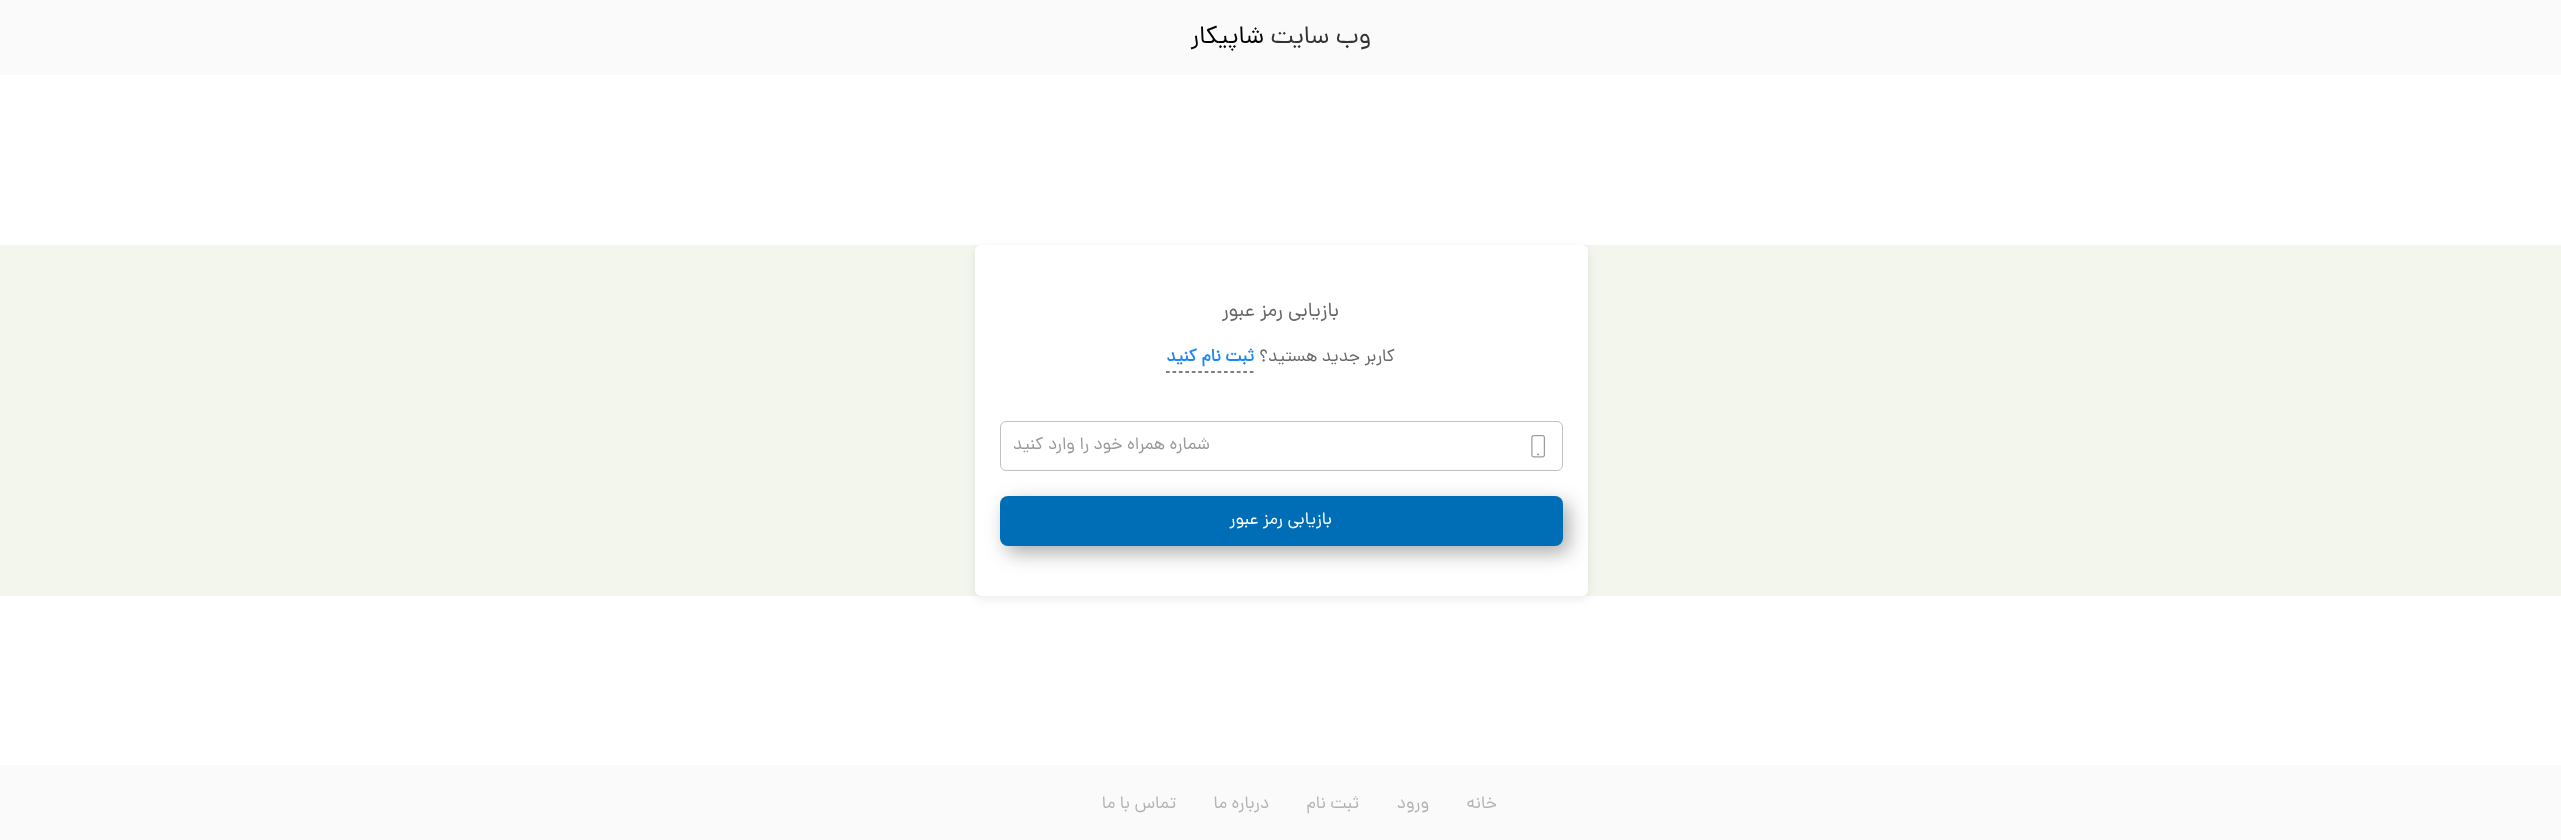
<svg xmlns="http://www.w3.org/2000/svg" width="2561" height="840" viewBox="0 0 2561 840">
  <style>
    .t1 { font: 25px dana; direction: rtl; fill: #333; }
    .t2 { font: 25px dana; direction: rtl; fill: #000; }
    .t3 { font: 20px dana; direction: rtl; fill: #666; }
    .t4 { font: 17.5px dana; direction: rtl; fill: #666; }
    .t5 { font: bold 17.5px dana; direction: rtl; fill: #1e87f0; }
    .t6 { font: 17.5px dana; direction: rtl; fill: #999; }
    .t7 { font: 17.5px dana; direction: rtl; fill: #fff; }
    .t8 { font: 17.5px dana; direction: rtl; fill: #b3b3b3; }
  </style>
  <defs>
    <clipPath id="clip1"><rect x="0" y="245" width="2561" height="351"/></clipPath>
  </defs>
  <rect width="100%" height="100%" fill="#fff"/>
  <rect x="0" y="0" width="2561" height="75" fill="#fafafa"/>
  <text x="1371" y="43" class="t1">وب سایت</text>
  <text x="1264" y="43" class="t2">شاپیکار</text>
  <g clip-path="url(#clip1)">
    <path d="M-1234 108C-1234 108 298 232 1281 232C2265 232 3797 108 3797 108V608C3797 608 2265 732 1281 732C298 732-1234 608-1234 608Z" fill="#f3f6ed"/>
  </g>
  <rect x="975" y="248" width="613" height="351" rx="6" fill="#00000014" filter="blur(5px)"/>
  <rect x="975" y="245" width="613" height="351" rx="6" fill="#fff"/>
  <text x="1339" y="316" class="t3">بازیابی رمز عبور</text>
  <text x="1395" y="361" class="t4">کاربر جدید هستید؟</text>
  <text x="1254" y="361" class="t5">ثبت نام کنید</text>
  <path d="M1166 372H1254" fill="none" stroke="#000" stroke-width="1.2" stroke-dasharray="3.75 2.69"/>
  <rect x="1000.5" y="421.5" width="562" height="49" rx="5.5" fill="none" stroke="#c2c2c2"/>
  <image x="1531" y="435" width="14" height="23" href="images/1.png"/>
  <text x="1210" y="449" class="t6">شماره همراه خود را وارد کنید</text>
  <rect x="1006" y="503" width="563" height="50" rx="8" fill="#2b2f2d66" filter="blur(9.5px)"/>
  <rect x="1000" y="496" width="563" height="50" rx="8" fill="#006db7"/>
  <text x="1332" y="524" class="t7">بازیابی رمز عبور</text>
  <rect x="0" y="765" width="2561" height="75" fill="#fafafa"/>
  <text x="1497" y="808" class="t8">خانه</text>
  <text x="1429" y="808" class="t8">ورود</text>
  <text x="1359" y="808" class="t8">ثبت نام</text>
  <text x="1269" y="808" class="t8">درباره ما</text>
  <text x="1176" y="808" class="t8">تماس با ما</text>
</svg>
